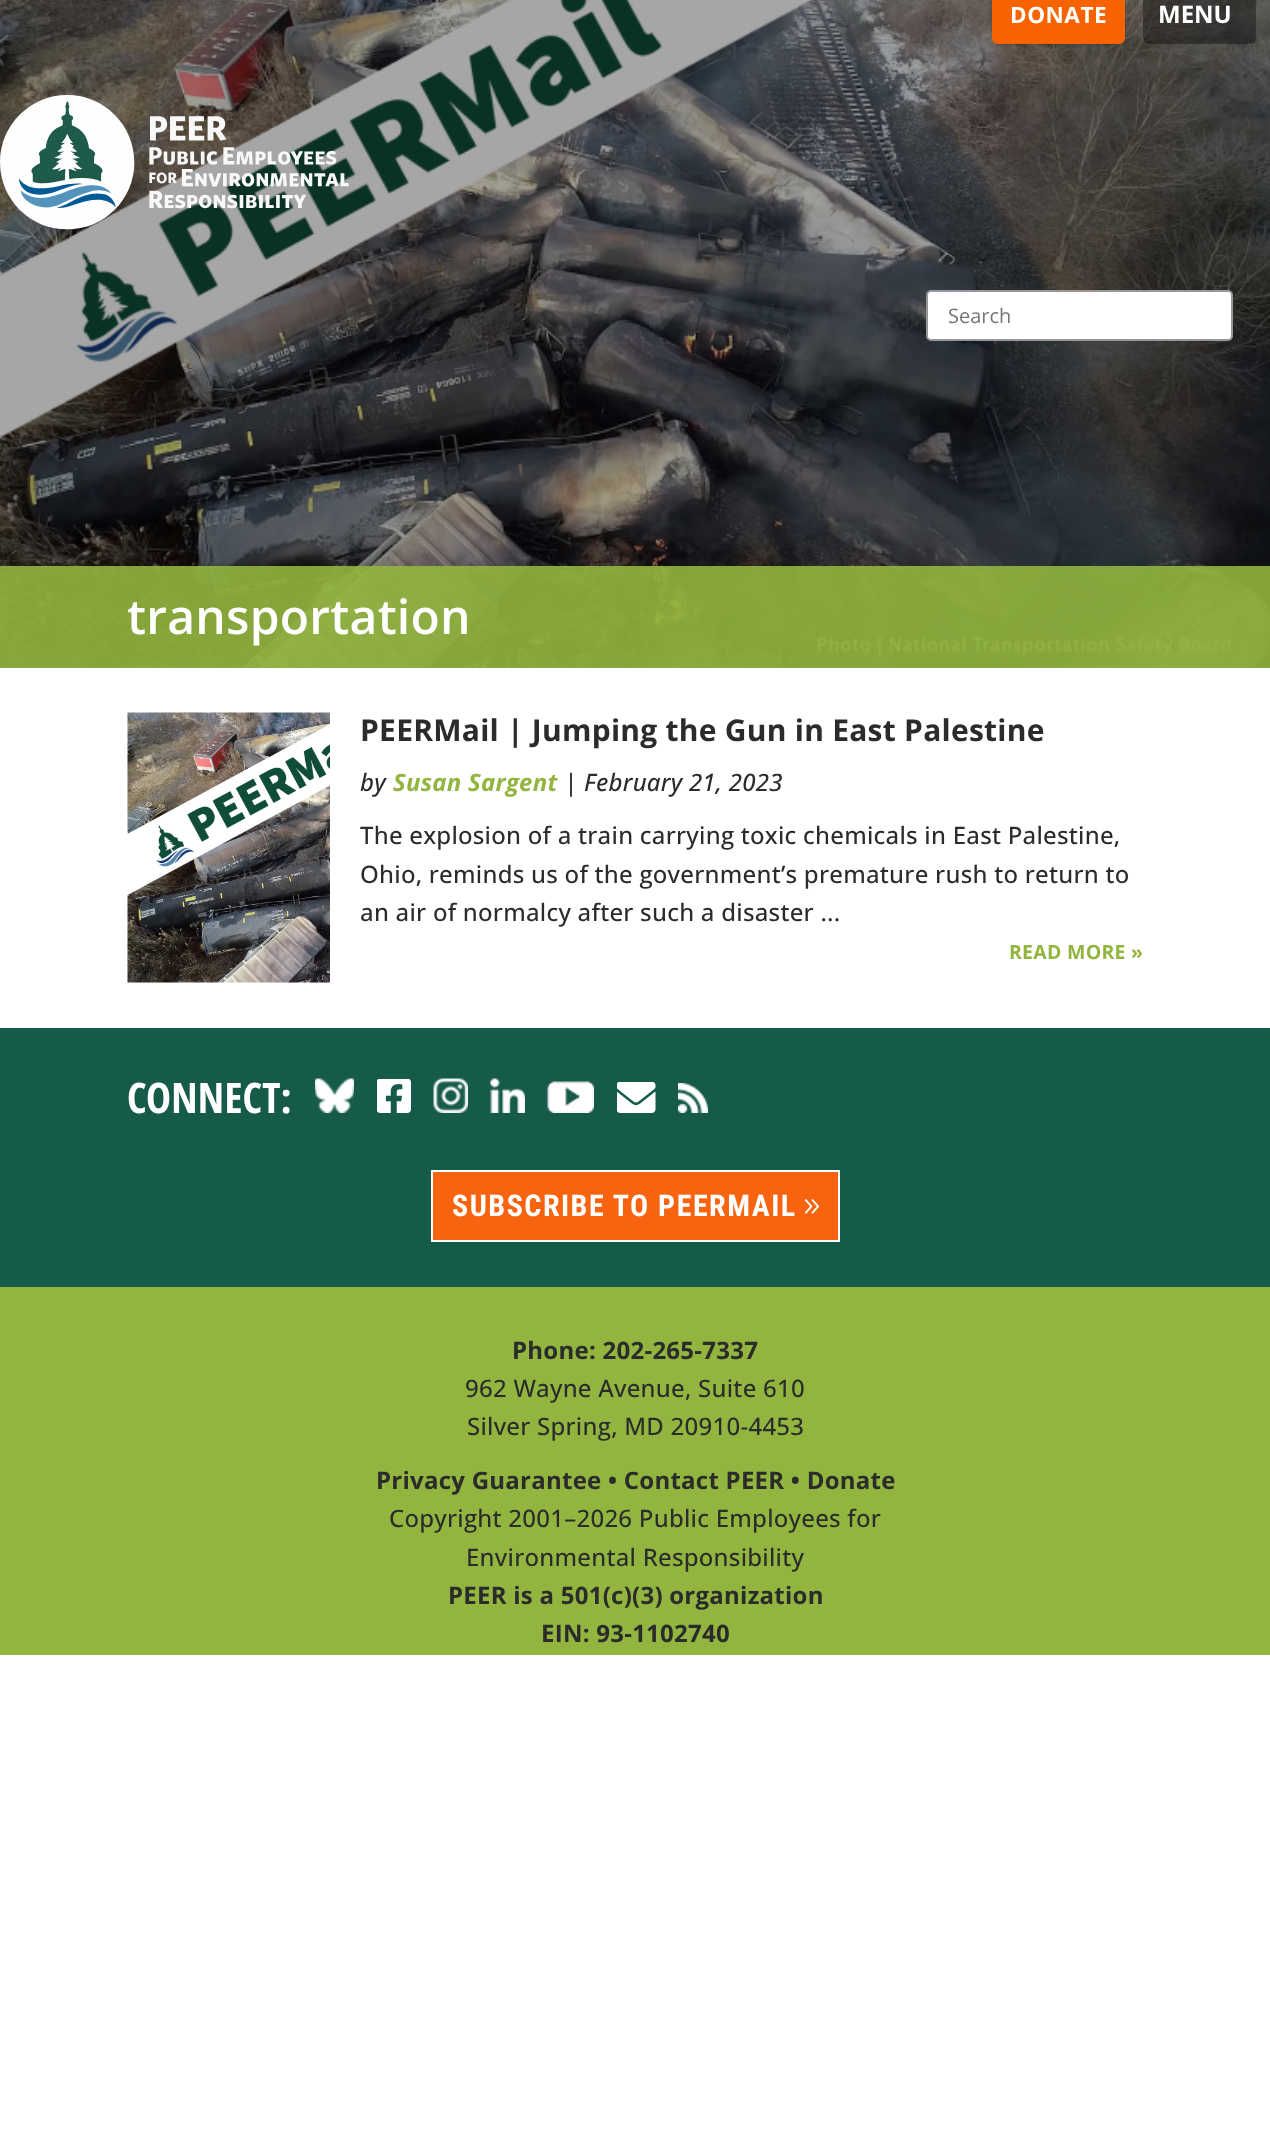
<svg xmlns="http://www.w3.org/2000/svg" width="1270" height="2150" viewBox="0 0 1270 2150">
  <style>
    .t1 { font: bold 22.5px Open Sans; letter-spacing: 0.5px; fill: #fff; }
    .t2 { font: bold 24px Open Sans; fill: #fff; }
    .t3 { font: 20px Open Sans; fill: #757575; }
    .t4 { font: 600 48px Open Sans; letter-spacing: 0.25px; fill: #fff; }
    .t5 { font: bold 30px Open Sans; letter-spacing: 0.25px; fill: #2b2b2b; }
    .t6 { font: italic 500 24px Open Sans; letter-spacing: 0.25px; fill: #2b2b2b; }
    .t7 { font: italic bold 24px Open Sans; letter-spacing: 0.25px; fill: #91b53e; }
    .t8 { font: 500 24px Open Sans; letter-spacing: 0.25px; fill: #2b2b2b; }
    .t9 { font: bold 19.5px Open Sans; letter-spacing: 0.25px; fill: #91b53e; }
    .t10 { font: bold 42px Open Sans Condensed; letter-spacing: 0.25px; fill: #fff; }
    .t11 { font: bold 30px Roboto Condensed; letter-spacing: 1.5px; fill: #fff; }
    .t12 { font: bold 24px Open Sans; letter-spacing: 0.25px; fill: #2b2b2b; }
  </style>
  <rect width="100%" height="100%" fill="#fff"/>
  <rect x="0" y="667" width="1270" height="1" fill="#a6a6a6"/>
  <image x="0" y="0" width="1270" height="668" href="images/2.png"/>
  <rect x="992" y="-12" width="133" height="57" rx="6" fill="#00000033" filter="blur(2px)"/>
  <rect x="992" y="-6" width="133" height="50" rx="6" fill="#f76300"/>
  <text x="1010" y="23" class="t1">DONATE</text>
  <rect x="1143" y="-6" width="113" height="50" rx="6" fill="#00000059"/>
  <text x="1158" y="23" class="t2">MENU</text>
  <image x="0" y="95" width="349" height="135" href="images/1.png"/>
  <rect x="927" y="291" width="305" height="49" rx="4" fill="#fff" stroke="#979797" stroke-width="2"/>
  <text x="948" y="323" class="t3">Search</text>
  <rect x="0" y="566" width="1270" height="102" fill="#91b53ee6"/>
  <text x="127" y="634" class="t4">transportation</text>
  <image x="127" y="712" width="203" height="271" href="images/3.png"/>
  <text x="360" y="741" class="t5">PEERMail | Jumping the Gun in East Palestine</text>
  <text x="360" y="791" class="t6">by</text>
  <text x="393" y="791" class="t7">Susan Sargent</text>
  <text x="564" y="791" class="t6">| February 21, 2023</text>
  <text x="360" y="844" class="t8">The explosion of a train carrying toxic chemicals in East Palestine,</text>
  <text x="360" y="883" class="t8">Ohio, reminds us of the government’s premature rush to return to</text>
  <text x="360" y="921" class="t8">an air of normalcy after such a disaster ...</text>
  <text x="1009" y="959" class="t9">READ MORE »</text>
  <rect x="0" y="1028" width="1270" height="259" fill="#165a4a"/>
  <text x="127" y="1113" class="t10">CONNECT:</text>
  <image x="315" y="1078" width="39" height="35" href="images/4.png"/>
  <image x="377" y="1079" width="34" height="34" href="images/5.png"/>
  <image x="433" y="1078" width="35" height="35" href="images/6.png"/>
  <image x="490" y="1078" width="35" height="35" href="images/7.png"/>
  <image x="547" y="1081" width="47" height="32" href="images/8.png"/>
  <image x="617" y="1082" width="39" height="31" href="images/9.png"/>
  <image x="678" y="1083" width="30" height="30" href="images/10.png"/>
  <rect x="432" y="1171" width="407" height="70" fill="#f7630f" stroke="#fff" stroke-width="2"/>
  <text x="452" y="1216" class="t11">SUBSCRIBE TO PEERMAIL</text>
  <image x="804" y="1199" width="15" height="15" href="images/11.png"/>
  <rect x="0" y="1287" width="1270" height="368" fill="#91b53e"/>
  <text x="512" y="1359" class="t12">Phone: 202-265-7337</text>
  <text x="465" y="1397" class="t8">962 Wayne Avenue, Suite 610</text>
  <text x="467" y="1435" class="t8">Silver Spring, MD 20910-4453</text>
  <text x="376" y="1489" class="t12">Privacy Guarantee • Contact PEER • Donate</text>
  <text x="389" y="1527" class="t8">Copyright 2001–2026 Public Employees for</text>
  <text x="466" y="1566" class="t8">Environmental Responsibility</text>
  <text x="448" y="1604" class="t12">PEER is a 501(c)(3) organization</text>
  <text x="541" y="1642" class="t12">EIN: 93-1102740</text>
</svg>
